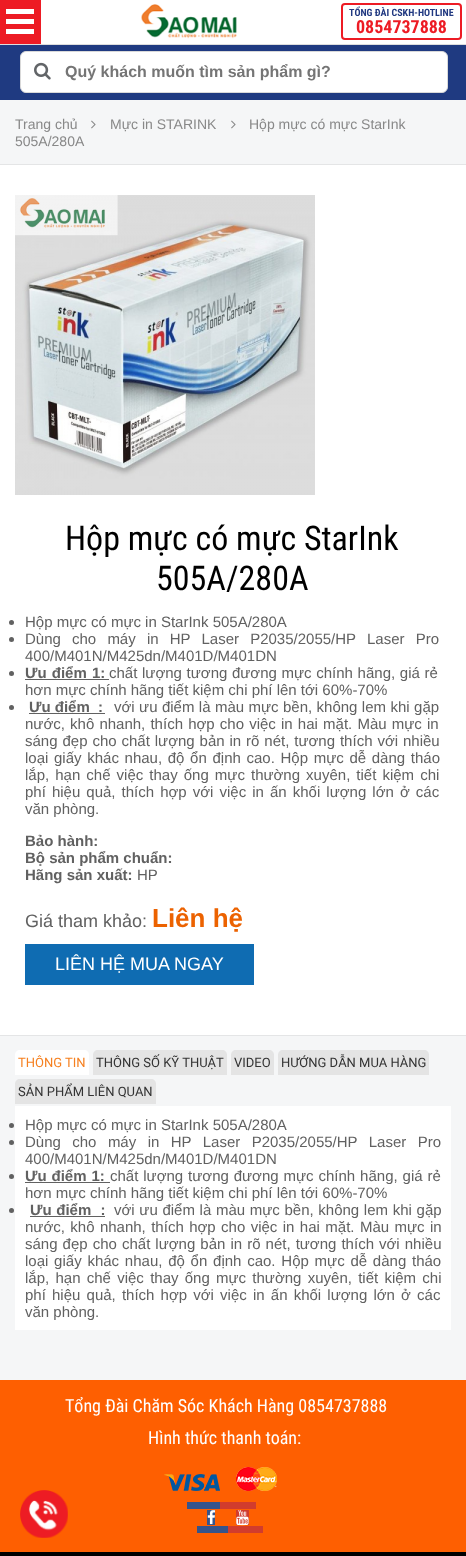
<svg xmlns="http://www.w3.org/2000/svg" width="466" height="1556" viewBox="0 0 466 1556">
  <style>
    .t1 { font: bold 10px Roboto Condensed; fill: #213981; }
    .t2 { font: bold 18px Roboto Condensed; fill: #ed1b24; }
    .t3 { font: bold 16px Liberation Sans; fill: #757575; }
    .t4 { font: 14px Liberation Sans; fill: #888; }
    .t5 { font: 34px Roboto Condensed; fill: #000; }
    .t6 { font: 15px Liberation Sans; fill: #616161; }
    .t7 { font: bold 15px Liberation Sans; fill: #616161; }
    .t8 { font: 18px Liberation Sans; fill: #616161; }
    .t9 { font: bold 26px Liberation Sans; fill: #ec6200; }
    .t10 { font: 18px Liberation Sans; fill: #fff; }
    .t11 { font: 13px Roboto; fill: #f68121; }
    .t12 { font: 13px Roboto; fill: #333; }
    .t13 { font: 18px Roboto Condensed; fill: #fff; }
  </style>
  <rect width="100%" height="100%" fill="#f5f6f7"/>
  <rect x="0" y="45" width="466" height="55" fill="#1f3a81"/>
  <rect x="41" y="0" width="425" height="44" fill="#fff"/>
  <rect x="0" y="44" width="466" height="1" fill="#ddd"/>
  <rect x="0" y="0" width="41" height="44" fill="#ed1b24"/>
  <rect x="6" y="19" width="28" height="5" fill="#fff"/>
  <rect x="6" y="9" width="28" height="5" fill="#fff"/>
  <rect x="6" y="29" width="28" height="5" fill="#fff"/>
  <image x="141" y="4" width="96" height="35" href="images/1.png"/>
  <rect x="342" y="4" width="119" height="35" rx="3" fill="none" stroke="#ed1b24" stroke-width="2"/>
  <text x="349" y="16" class="t1">TỔNG ĐÀI CSKH-HOTLINE</text>
  <text x="356" y="33" class="t2">0854737888</text>
  <rect x="20.5" y="51.5" width="427" height="41" rx="5.5" fill="#fff" stroke="#d9d9d9"/>
  <image x="34" y="62" width="17" height="18" href="images/2.png"/>
  <text x="65" y="77" class="t3">Quý khách muốn tìm sản phẩm gì?</text>
  <text x="15" y="129" class="t4">Trang chủ</text>
  <image x="91" y="120" width="5" height="9" href="images/3.png"/>
  <text x="110" y="129" class="t4">Mực in STARINK</text>
  <image x="231" y="120" width="5" height="9" href="images/3.png"/>
  <text x="249" y="129" class="t4">Hộp mực có mực StarInk</text>
  <text x="15" y="146" class="t4">505A/280A</text>
  <rect x="0" y="165" width="466" height="870" fill="#fff"/>
  <rect x="0" y="164" width="466" height="1" fill="#e4e5e6"/>
  <rect x="0" y="1035" width="466" height="1" fill="#e4e5e6"/>
  <image x="15" y="195" width="300" height="300" href="images/4.png"/>
  <text x="65" y="550" class="t5">Hộp mực có mực StarInk</text>
  <text x="156" y="590" class="t5">505A/280A</text>
  <circle cx="11.5" cy="622.5" r="2.5" fill="#616161"/>
  <text x="25" y="627" class="t6">Hộp mực có mực in StarInk 505A/280A</text>
  <circle cx="11.5" cy="639.5" r="2.5" fill="#616161"/>
  <text x="25" y="644" word-spacing="7" class="t6">Dùng cho máy in HP Laser P2035/2055/HP Laser Pro</text>
  <text x="25" y="661" class="t6">400/M401N/M425dn/M401D/M401DN</text>
  <circle cx="11.5" cy="673.5" r="2.5" fill="#616161"/>
  <text x="25" y="678" word-spacing="1" class="t7">Ưu điểm 1:</text>
  <rect x="25" y="679" width="84" height="1" fill="#616161"/>
  <text x="109" y="678" word-spacing="0.5" class="t6">chất lượng tương đương mực chính hãng, giá rẻ</text>
  <text x="25" y="695" class="t6">hơn mực chính hãng tiết kiệm chi phí lên tới 60%-70%</text>
  <circle cx="11.5" cy="707.5" r="2.5" fill="#616161"/>
  <text x="29" y="712" class="t7" xml:space="preserve">Ưu điểm  :</text>
  <rect x="29" y="713" width="76" height="1" fill="#616161"/>
  <text x="114" y="712" word-spacing="0.25" class="t6">với ưu điểm là màu mực bền, không lem khi gặp</text>
  <text x="25" y="729" word-spacing="1" class="t6">nước, khô nhanh, thích hợp cho việc in hai mặt. Màu mực in</text>
  <text x="25" y="746" word-spacing="0.75" class="t6">sáng đẹp cho chất lượng bản in rõ nét, tương thích với nhiều</text>
  <text x="25" y="763" word-spacing="1.5" class="t6">loại giấy khác nhau, độ ổn định cao. Hộp mực dễ dàng tháo</text>
  <text x="25" y="780" word-spacing="1.9" class="t6">lắp, hạn chế việc thay ống mực thường xuyên, tiết kiệm chi</text>
  <text x="25" y="797" word-spacing="1.9" class="t6">phí hiệu quả, thích hợp với việc in ấn khối lượng lớn ở các</text>
  <text x="25" y="814" class="t6">văn phòng.</text>
  <text x="25" y="846" class="t7">Bảo hành:</text>
  <text x="25" y="863" class="t7">Bộ sản phẩm chuẩn:</text>
  <text x="25" y="880" class="t7">Hãng sản xuất:</text>
  <text x="137" y="880" class="t6">HP</text>
  <text x="25" y="927" class="t8">Giá tham khảo:</text>
  <text x="152" y="927" class="t9">Liên hệ</text>
  <rect x="25" y="944" width="229" height="41" fill="#0f6cb2"/>
  <text x="55" y="970" class="t10">LIÊN HỆ MUA NGAY</text>
  <path d="M20 1050H84C87 1050 89 1052 89 1055V1075H15V1055C15 1052 17 1050 20 1050Z" fill="#fff"/>
  <text x="18" y="1067" class="t11">THÔNG TIN</text>
  <path d="M98 1050H222C225 1050 227 1052 227 1055V1075H93V1055C93 1052 95 1050 98 1050Z" fill="#e4e4e4"/>
  <text x="96" y="1067" class="t12">THÔNG SỐ KỸ THUẬT</text>
  <path d="M236 1050H269C272 1050 274 1052 274 1055V1075H231V1055C231 1052 233 1050 236 1050Z" fill="#e4e4e4"/>
  <text x="234" y="1067" class="t12">VIDEO</text>
  <path d="M283 1050H424C427 1050 429 1052 429 1055V1075H278V1055C278 1052 280 1050 283 1050Z" fill="#e4e4e4"/>
  <text x="281" y="1067" class="t12">HƯỚNG DẪN MUA HÀNG</text>
  <path d="M20 1079H151C154 1079 156 1081 156 1084V1104H15V1084C15 1081 17 1079 20 1079Z" fill="#e4e4e4"/>
  <text x="18" y="1096" class="t12">SẢN PHẨM LIÊN QUAN</text>
  <rect x="15" y="1106" width="436" height="224" fill="#fff"/>
  <circle cx="11.5" cy="1125.5" r="2.5" fill="#616161"/>
  <text x="25" y="1130" class="t6">Hộp mực có mực in StarInk 505A/280A</text>
  <circle cx="11.5" cy="1142.5" r="2.5" fill="#616161"/>
  <text x="25" y="1147" word-spacing="7.25" class="t6">Dùng cho máy in HP Laser P2035/2055/HP Laser Pro</text>
  <text x="25" y="1164" class="t6">400/M401N/M425dn/M401D/M401DN</text>
  <circle cx="11.5" cy="1176.5" r="2.5" fill="#616161"/>
  <text x="25" y="1181" word-spacing="0.75" class="t7">Ưu điểm 1:</text>
  <rect x="25" y="1182" width="85" height="1" fill="#616161"/>
  <text x="110" y="1181" word-spacing="0.75" class="t6">chất lượng tương đương mực chính hãng, giá rẻ</text>
  <text x="25" y="1198" class="t6">hơn mực chính hãng tiết kiệm chi phí lên tới 60%-70%</text>
  <circle cx="11.5" cy="1210.5" r="2.5" fill="#616161"/>
  <text x="30" y="1215" word-spacing="0.5" class="t7" xml:space="preserve">Ưu điểm  :</text>
  <rect x="30" y="1216" width="75" height="1" fill="#616161"/>
  <text x="114" y="1215" word-spacing="0.5" class="t6">với ưu điểm là màu mực bền, không lem khi gặp</text>
  <text x="25" y="1232" word-spacing="1.25" class="t6">nước, khô nhanh, thích hợp cho việc in hai mặt. Màu mực in</text>
  <text x="25" y="1249" word-spacing="0.9" class="t6">sáng đẹp cho chất lượng bản in rõ nét, tương thích với nhiều</text>
  <text x="25" y="1266" word-spacing="1.6" class="t6">loại giấy khác nhau, độ ổn định cao. Hộp mực dễ dàng tháo</text>
  <text x="25" y="1283" word-spacing="2.1" class="t6">lắp, hạn chế việc thay ống mực thường xuyên, tiết kiệm chi</text>
  <text x="25" y="1300" word-spacing="2" class="t6">phí hiệu quả, thích hợp với việc in ấn khối lượng lớn ở các</text>
  <text x="25" y="1317" class="t6">văn phòng.</text>
  <rect x="0" y="1380" width="466" height="172" fill="#fe5f01"/>
  <text x="65" y="1412" class="t13">Tổng Đài Chăm Sóc Khách Hàng 0854737888</text>
  <text x="148" y="1444" class="t13">Hình thức thanh toán:</text>
  <image x="164" y="1474" width="56" height="17" href="images/5.png"/>
  <image x="236" y="1467" width="41" height="24" href="images/6.png"/>
  <rect x="187" y="1502" width="38" height="7" fill="#35548b"/>
  <rect x="207" y="1510" width="8" height="15" fill="#35548b"/>
  <rect x="197" y="1526" width="37" height="7" fill="#35548b"/>
  <image x="207" y="1510" width="9" height="15" href="images/7.png"/>
  <rect x="220" y="1502" width="36" height="7" fill="#d13c2d"/>
  <rect x="236" y="1510" width="13" height="15" fill="#d13c2d"/>
  <rect x="228" y="1526" width="35" height="7" fill="#d13c2d"/>
  <image x="236" y="1510" width="13" height="16" href="images/8.png"/>
  <rect x="0" y="1552" width="466" height="4" fill="#000"/>
  <image x="20" y="1490" width="48" height="48" href="images/9.png"/>
</svg>
